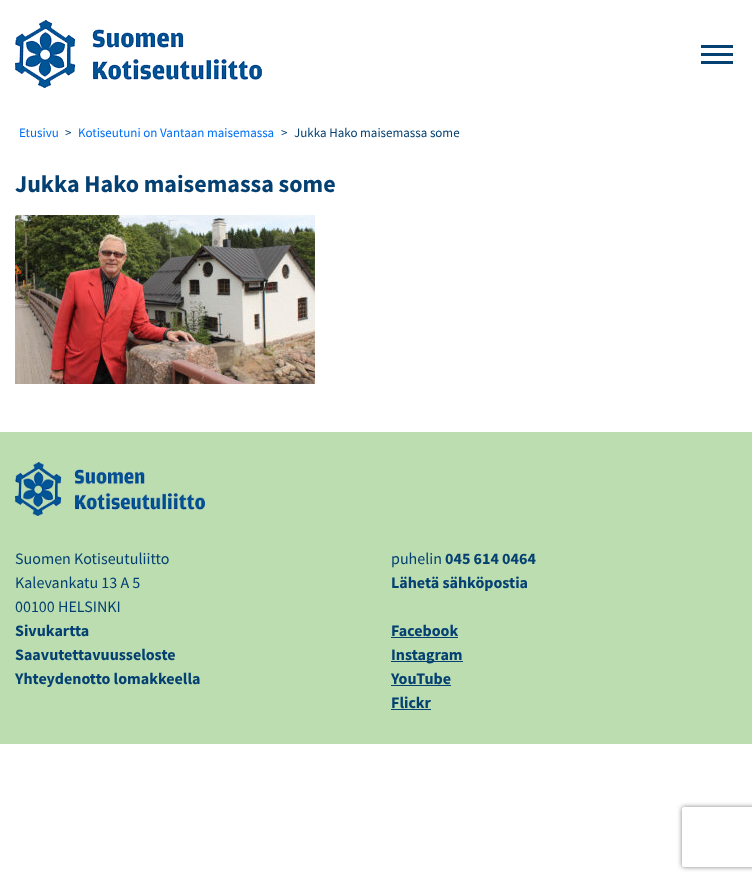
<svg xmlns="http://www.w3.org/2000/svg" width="752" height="881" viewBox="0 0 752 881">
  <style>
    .t1 { font: 13px Source Sans Pro; fill: #006ff6; }
    .t2 { font: 13px Source Sans Pro; fill: #044071; }
    .t3 { font: bold 24px Source Sans Pro; fill: #044071; }
    .t4 { font: 16px Source Sans Pro; fill: #044071; }
    .t5 { font: bold 16px Source Sans Pro; fill: #044071; }
  </style>
  <defs>
    <clipPath id="clip1"><path d="M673 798H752V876H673ZM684 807H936C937 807 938 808 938 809V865C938 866 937 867 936 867H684C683 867 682 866 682 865V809C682 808 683 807 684 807Z" clip-rule="evenodd"/></clipPath>
  </defs>
  <rect width="100%" height="100%" fill="#fff"/>
  <image x="15" y="20" width="247" height="68" href="images/1.png"/>
  <rect x="701" y="45" width="32" height="3" fill="#044071"/>
  <rect x="701" y="53" width="32" height="3" fill="#044071"/>
  <rect x="701" y="61" width="32" height="3" fill="#044071"/>
  <text x="19" y="137" class="t1">Etusivu</text>
  <text x="65" y="137" class="t2">&gt;</text>
  <text x="78" y="137" class="t1">Kotiseutuni on Vantaan maisemassa</text>
  <text x="281" y="137" class="t2">&gt;</text>
  <text x="294" y="137" class="t2">Jukka Hako maisemassa some</text>
  <text x="15" y="192" class="t3">Jukka Hako maisemassa some</text>
  <image x="15" y="215" width="300" height="169" href="images/2.png"/>
  <rect x="0" y="432" width="752" height="312" fill="#bbddb0"/>
  <image x="15" y="462" width="190" height="54" href="images/3.png"/>
  <text x="15" y="564" class="t4">Suomen Kotiseutuliitto</text>
  <text x="15" y="588" class="t4">Kalevankatu 13 A 5</text>
  <text x="15" y="612" class="t4">00100 HELSINKI</text>
  <text x="391" y="564" class="t4">puhelin</text>
  <text x="445" y="564" class="t5">045 614 0464</text>
  <text x="391" y="588" class="t5">Lähetä sähköpostia</text>
  <text x="15" y="636" class="t5">Sivukartta</text>
  <text x="15" y="660" class="t5">Saavutettavuusseloste</text>
  <text x="15" y="684" class="t5">Yhteydenotto lomakkeella</text>
  <text x="391" y="636" class="t5">Facebook</text>
  <rect x="391" y="637" width="67" height="1" fill="#044071"/>
  <rect x="391" y="661" width="72" height="1" fill="#044071"/>
  <text x="391" y="660" class="t5">Instagram</text>
  <text x="391" y="684" class="t5">YouTube</text>
  <rect x="391" y="685" width="60" height="1" fill="#044071"/>
  <text x="391" y="708" class="t5">Flickr</text>
  <rect x="391" y="709" width="40" height="1" fill="#044071"/>
  <g clip-path="url(#clip1)">
    <rect x="682" y="807" width="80" height="60" rx="2" fill="#808080" filter="blur(2.5px)"/>
  </g>
</svg>
